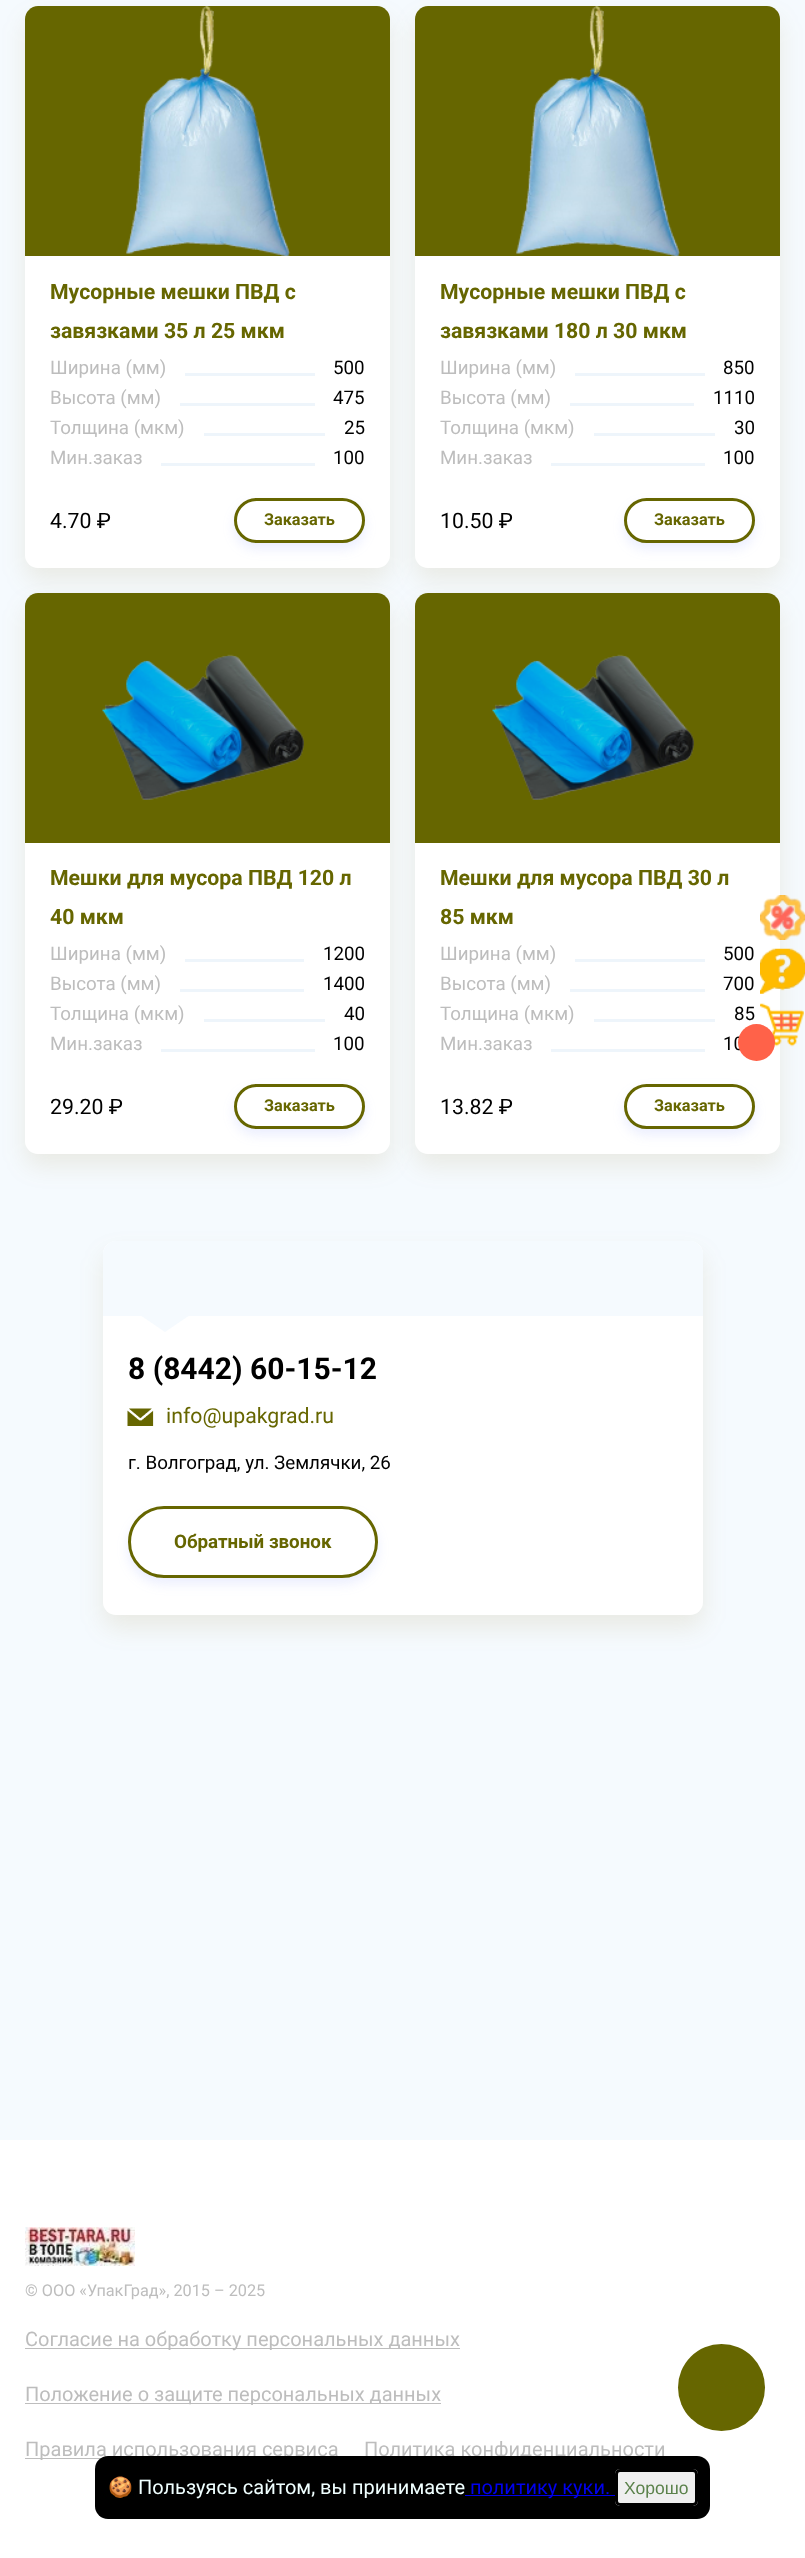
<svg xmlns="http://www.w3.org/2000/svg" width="805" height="2558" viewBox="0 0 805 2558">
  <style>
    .t1 { font: bold 21.25px Roboto; fill: #660; }
    .t2 { font: 18.75px Roboto; fill: #bdbdbd; }
    .t3 { font: 18.75px Roboto; fill: #000; }
    .t4 { font: 21.25px Roboto; fill: #000; }
    .t5 { font: bold 16.25px Roboto; fill: #660; }
    .t6 { font: bold 30px Roboto; fill: #000; }
    .t7 { font: 21.25px Roboto; fill: #660; }
    .t8 { font: bold 18.75px Roboto; fill: #660; }
    .t9 { font: 16.25px Roboto; fill: #bdbdbd; }
    .t10 { font: 20px Roboto; fill: #bdbdbd; }
    .t11 { font: 20px Noto Color Emoji; fill: #f0ffff; }
    .t12 { font: 20px Roboto; fill: #f0ffff; }
    .t13 { font: 20px Roboto; fill: #00e; }
    .t14 { font: 17.5px Liberation Sans; fill: #5b824b; }
  </style>
  <rect width="100%" height="100%" fill="#fff"/>
  <rect x="0" y="0" width="805" height="2140" fill="#f5fafe"/>
  <rect x="25" y="19" width="365" height="561" rx="13" fill="#8e66001a" filter="blur(12.5px)"/>
  <rect x="25" y="6" width="365" height="562" rx="13" fill="#fff"/>
  <rect x="415" y="19" width="365" height="561" rx="13" fill="#8e66001a" filter="blur(12.5px)"/>
  <path d="M38 6H377C384 6 390 12 390 19V256H25V19C25 12 31 6 38 6Z" fill="#660"/>
  <image x="126" y="6" width="165" height="250" href="images/1.png"/>
  <text x="50" y="299" class="t1">Мусорные мешки ПВД с</text>
  <text x="50" y="338" class="t1">завязками 35 л 25 мкм</text>
  <text x="50" y="374" class="t2">Ширина (мм)</text>
  <rect x="185" y="373" width="130" height="3" fill="#eef5fb"/>
  <text x="333" y="374" class="t3">500</text>
  <text x="50" y="404" class="t2">Высота (мм)</text>
  <rect x="180" y="403" width="135" height="3" fill="#eef5fb"/>
  <text x="333" y="404" class="t3">475</text>
  <text x="50" y="434" class="t2">Толщина (мкм)</text>
  <rect x="204" y="433" width="121" height="3" fill="#eef5fb"/>
  <text x="344" y="434" class="t3">25</text>
  <text x="50" y="464" class="t2">Мин.заказ</text>
  <rect x="161" y="463" width="154" height="3" fill="#eef5fb"/>
  <text x="333" y="464" class="t3">100</text>
  <text x="50" y="528" class="t4">4.70 ₽</text>
  <rect x="234" y="504" width="131" height="45" rx="22.5" fill="#7a8ef726" filter="blur(6px)"/>
  <rect x="235.5" y="499.5" width="128" height="42" rx="21" fill="#fff" stroke="#660" stroke-width="3"/>
  <text x="264" y="525" class="t5">Заказать</text>
  <rect x="415" y="6" width="365" height="562" rx="13" fill="#fff"/>
  <path d="M428 6H767C774 6 780 12 780 19V256H415V19C415 12 421 6 428 6Z" fill="#660"/>
  <image x="516" y="6" width="165" height="250" href="images/2.png"/>
  <text x="440" y="299" class="t1">Мусорные мешки ПВД с</text>
  <text x="440" y="338" class="t1">завязками 180 л 30 мкм</text>
  <text x="440" y="374" class="t2">Ширина (мм)</text>
  <rect x="575" y="373" width="130" height="3" fill="#eef5fb"/>
  <text x="723" y="374" class="t3">850</text>
  <text x="440" y="404" class="t2">Высота (мм)</text>
  <rect x="570" y="403" width="124" height="3" fill="#eef5fb"/>
  <text x="713" y="404" class="t3">1110</text>
  <text x="440" y="434" class="t2">Толщина (мкм)</text>
  <rect x="594" y="433" width="121" height="3" fill="#eef5fb"/>
  <text x="734" y="434" class="t3">30</text>
  <text x="440" y="464" class="t2">Мин.заказ</text>
  <rect x="551" y="463" width="154" height="3" fill="#eef5fb"/>
  <text x="723" y="464" class="t3">100</text>
  <text x="440" y="528" class="t4">10.50 ₽</text>
  <rect x="624" y="504" width="131" height="45" rx="22.5" fill="#7a8ef726" filter="blur(6px)"/>
  <rect x="625.5" y="499.5" width="128" height="42" rx="21" fill="#fff" stroke="#660" stroke-width="3"/>
  <text x="654" y="525" class="t5">Заказать</text>
  <rect x="25" y="605" width="365" height="561" rx="13" fill="#8e66001a" filter="blur(12.5px)"/>
  <rect x="25" y="593" width="365" height="561" rx="13" fill="#fff"/>
  <rect x="415" y="605" width="365" height="561" rx="13" fill="#8e66001a" filter="blur(12.5px)"/>
  <path d="M38 593H377C384 593 390 599 390 606V843H25V606C25 599 31 593 38 593Z" fill="#660"/>
  <image x="102" y="654" width="202" height="146" href="images/3.png"/>
  <text x="50" y="885" class="t1">Мешки для мусора ПВД 120 л</text>
  <text x="50" y="924" class="t1">40 мкм</text>
  <text x="50" y="960" class="t2">Ширина (мм)</text>
  <rect x="185" y="959" width="119" height="3" fill="#eef5fb"/>
  <text x="323" y="960" class="t3">1200</text>
  <text x="50" y="990" class="t2">Высота (мм)</text>
  <rect x="180" y="989" width="124" height="3" fill="#eef5fb"/>
  <text x="323" y="990" class="t3">1400</text>
  <text x="50" y="1020" class="t2">Толщина (мкм)</text>
  <rect x="204" y="1019" width="121" height="3" fill="#eef5fb"/>
  <text x="344" y="1020" class="t3">40</text>
  <text x="50" y="1050" class="t2">Мин.заказ</text>
  <rect x="161" y="1049" width="154" height="3" fill="#eef5fb"/>
  <text x="333" y="1050" class="t3">100</text>
  <text x="50" y="1114" class="t4">29.20 ₽</text>
  <rect x="234" y="1090" width="131" height="45" rx="22.5" fill="#7a8ef726" filter="blur(6px)"/>
  <rect x="235.5" y="1085.5" width="128" height="42" rx="21" fill="#fff" stroke="#660" stroke-width="3"/>
  <text x="264" y="1111" class="t5">Заказать</text>
  <rect x="415" y="593" width="365" height="561" rx="13" fill="#fff"/>
  <path d="M428 593H767C774 593 780 599 780 606V843H415V606C415 599 421 593 428 593Z" fill="#660"/>
  <image x="492" y="654" width="202" height="146" href="images/4.png"/>
  <text x="440" y="885" class="t1">Мешки для мусора ПВД 30 л</text>
  <text x="440" y="924" class="t1">85 мкм</text>
  <text x="440" y="960" class="t2">Ширина (мм)</text>
  <rect x="575" y="959" width="130" height="3" fill="#eef5fb"/>
  <text x="723" y="960" class="t3">500</text>
  <text x="440" y="990" class="t2">Высота (мм)</text>
  <rect x="570" y="989" width="135" height="3" fill="#eef5fb"/>
  <text x="723" y="990" class="t3">700</text>
  <text x="440" y="1020" class="t2">Толщина (мкм)</text>
  <rect x="594" y="1019" width="121" height="3" fill="#eef5fb"/>
  <text x="734" y="1020" class="t3">85</text>
  <text x="440" y="1050" class="t2">Мин.заказ</text>
  <rect x="551" y="1049" width="154" height="3" fill="#eef5fb"/>
  <text x="723" y="1050" class="t3">10</text>
  <text x="440" y="1114" class="t4">13.82 ₽</text>
  <rect x="624" y="1090" width="131" height="45" rx="22.5" fill="#7a8ef726" filter="blur(6px)"/>
  <rect x="625.5" y="1085.5" width="128" height="42" rx="21" fill="#fff" stroke="#660" stroke-width="3"/>
  <text x="654" y="1111" class="t5">Заказать</text>
  <image x="760" y="895" width="45" height="45" href="images/5.png"/>
  <image x="760" y="948" width="45" height="46" href="images/6.png"/>
  <image x="760" y="1003" width="44" height="44" href="images/7.png"/>
  <circle cx="756.5" cy="1042.5" r="18.5" fill="#ff6249"/>
  <rect x="103" y="1254" width="600" height="374" rx="13" fill="#8e66001a" filter="blur(12.5px)"/>
  <rect x="103" y="1241" width="600" height="374" rx="13" fill="#fff"/>
  <path d="M116 1241H690C697 1241 703 1247 703 1254V1316H103V1254C103 1247 109 1241 116 1241Z" fill="#f5fafe"/>
  <path d="M140 1315H190L165 1332Z" fill="#f5fafe"/>
  <text x="128" y="1379" class="t6">8 (8442) 60-15-12</text>
  <image x="127" y="1408" width="27" height="18" href="images/8.png"/>
  <text x="166" y="1423" class="t7">info@upakgrad.ru</text>
  <text x="128" y="1469" class="t3">г. Волгоград, ул. Землячки, 26</text>
  <rect x="128" y="1513" width="250" height="71" rx="35.5" fill="#7a8ef726" filter="blur(6px)"/>
  <rect x="129.5" y="1507.5" width="247" height="69" rx="34.5" fill="#fff" stroke="#660" stroke-width="3"/>
  <text x="174" y="1548" class="t8">Обратный звонок</text>
  <image x="25" y="2227" width="110" height="39" href="images/9.png"/>
  <text x="25" y="2296" class="t9">© ООО «УпакГрад», 2015 – 2025</text>
  <rect x="25" y="2348" width="435" height="1" fill="#bdbdbd"/>
  <text x="25" y="2346" class="t10">Согласие на обработку персональных данных</text>
  <rect x="25" y="2403" width="416" height="1" fill="#bdbdbd"/>
  <text x="25" y="2401" class="t10">Положение о защите персональных данных</text>
  <rect x="25" y="2458" width="76" height="1" fill="#bdbdbd"/>
  <text x="25" y="2456" class="t10">Правила использования сервиса</text>
  <text x="364" y="2456" class="t10">Политика конфиденциальности</text>
  <circle cx="721.5" cy="2387.5" r="43.5" fill="#660"/>
  <rect x="95" y="2456" width="615" height="63" rx="13" fill="#000"/>
  <text x="108" y="2494" class="t11">🍪</text>
  <text x="138" y="2494" class="t12">Пользуясь сайтом, вы принимаете</text>
  <rect x="465" y="2495" width="150" height="1" fill="#00e"/>
  <text x="470" y="2494" class="t13">политику куки.</text>
  <rect x="615" y="2469" width="83" height="37" rx="5" fill="#efefef"/>
  <path d="M620 2472H692C694 2472 695 2474 695 2475C695 2468 686 2471 680 2471H632C627 2471 618 2468 618 2475C618 2474 619 2472 620 2472Z" fill="#f2f2f2"/>
  <rect x="616.5" y="2470.5" width="80" height="34" rx="3.5" fill="none" stroke="#000" stroke-width="3"/>
  <text x="624" y="2494" class="t14">Хорошо</text>
</svg>
